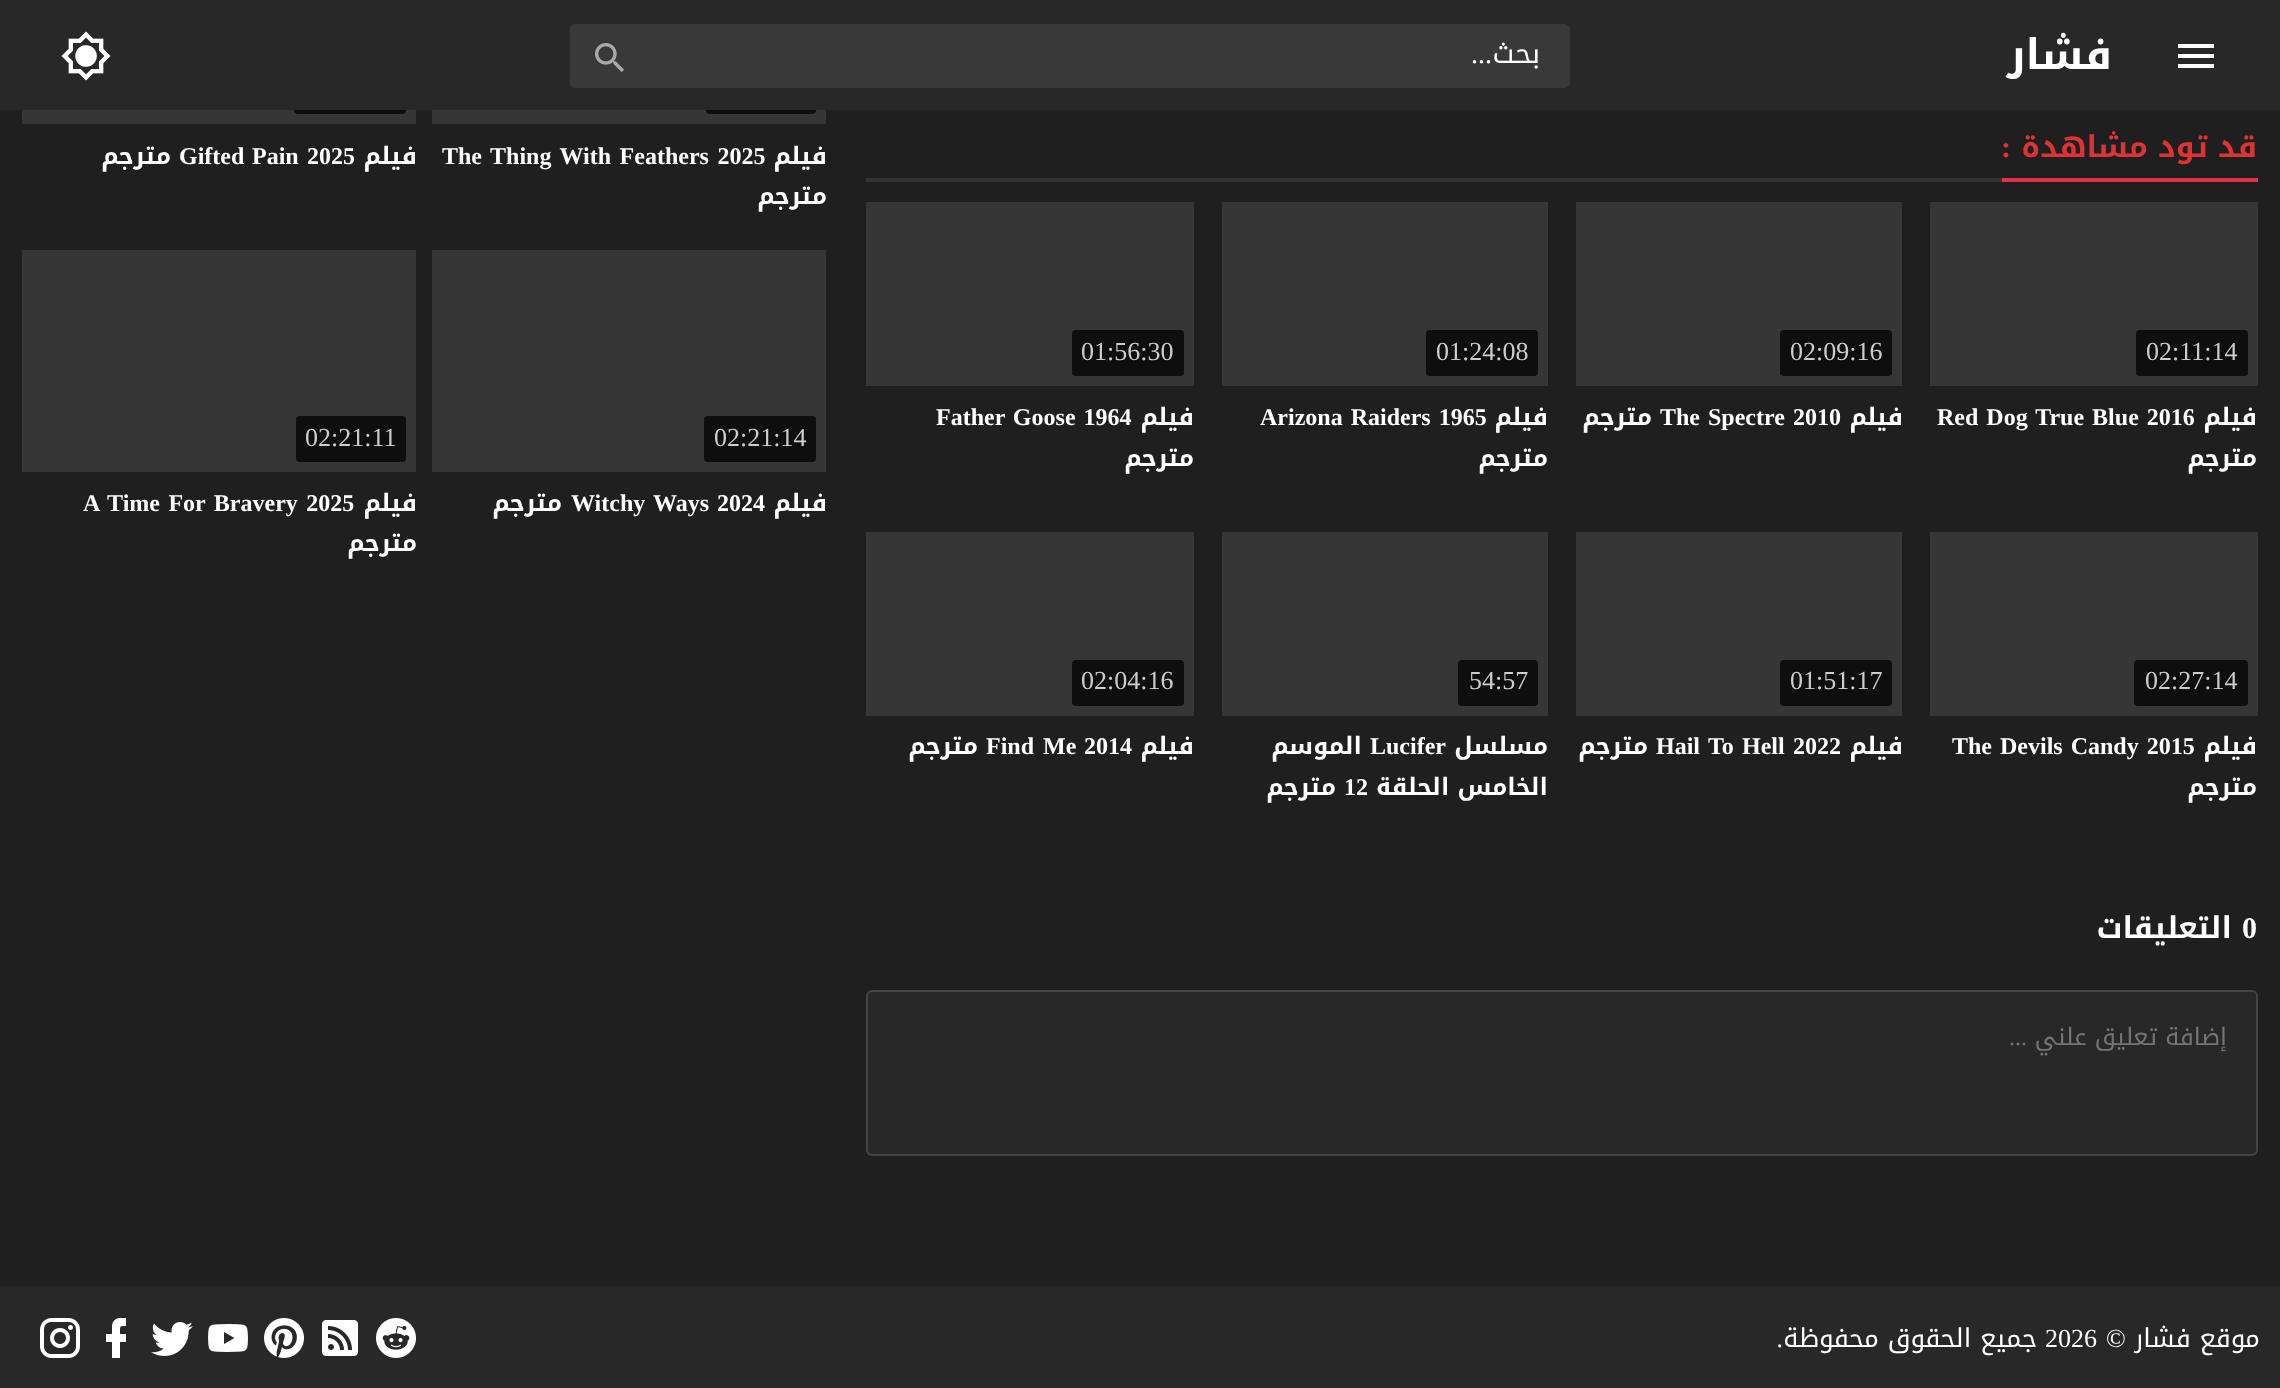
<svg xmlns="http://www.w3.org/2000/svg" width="2280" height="1388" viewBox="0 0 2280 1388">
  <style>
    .t1 { font: 28px Liberation Serif; direction: rtl; fill: #fff; }
    .t2 { font: 28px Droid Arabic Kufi; direction: rtl; fill: #fff; }
    .t3 { font: bold 42px Droid Arabic Kufi; direction: rtl; fill: #fff; }
    .t4 { font: bold 24px Droid Arabic Kufi; direction: rtl; fill: #fff; }
    .t5 { font: bold 24px Liberation Serif; fill: #fff; }
    .t6 { font: 26px Liberation Serif; fill: #cdcdcd; }
    .t7 { font: bold 30px Liberation Serif; direction: rtl; fill: #d33; }
    .t8 { font: bold 30px Droid Arabic Kufi; direction: rtl; fill: #d33; }
    .t9 { font: bold 30px Droid Arabic Kufi; direction: rtl; fill: #fff; }
    .t10 { font: bold 30px Liberation Serif; fill: #fff; }
    .t11 { font: 24px Liberation Serif; direction: rtl; fill: #757575; }
    .t12 { font: 24px Droid Arabic Kufi; direction: rtl; fill: #757575; }
    .t13 { font: 26px Liberation Serif; direction: rtl; fill: #fff; }
    .t14 { font: 26px Droid Arabic Kufi; direction: rtl; fill: #fff; }
    .t15 { font: 26px Liberation Serif; fill: #fff; }
  </style>
  <rect width="100%" height="100%" fill="#1f1f1f"/>
  <rect x="22" y="110" width="394" height="14" fill="#363636"/>
  <rect x="294" y="68" width="112" height="46" rx="4" fill="#0e0e0e"/>
  <rect x="432" y="110" width="394" height="14" fill="#363636"/>
  <rect x="706" y="68" width="110" height="46" rx="4" fill="#0e0e0e"/>
  <rect x="0" y="0" width="2280" height="110" fill="#282828"/>
  <image x="61" y="31" width="50" height="50" href="images/1.png"/>
  <path d="M576 24H670V88H576C572.5 88 570 85.5 570 82V30C570 26.5 572.5 24 576 24Z" fill="#393939"/>
  <image x="595" y="43" width="29" height="29" href="images/2.png"/>
  <path d="M670 24H1564C1567.5 24 1570 26.5 1570 30V82C1570 85.5 1567.5 88 1564 88H670Z" fill="#393939"/>
  <text x="1492" y="63" class="t1">...</text>
  <text x="1540" y="63" class="t2">بحث</text>
  <text x="2112" y="69" class="t3">فشار</text>
  <image x="2178" y="44" width="36" height="24" href="images/3.png"/>
  <text x="171" y="164" class="t4">مترجم</text>
  <text x="179" y="164" class="t5">Gifted</text>
  <text x="252" y="164" class="t5">Pain</text>
  <text x="307" y="164" class="t5">2025</text>
  <text x="417" y="164" class="t4">فيلم</text>
  <text x="442" y="164" word-spacing="2.5" class="t5">The Thing With Feathers 2025</text>
  <text x="827" y="164" class="t4">فيلم</text>
  <text x="827" y="204" class="t4">مترجم</text>
  <rect x="22" y="250" width="394" height="222" fill="#363636"/>
  <rect x="296" y="416" width="110" height="46" rx="4" fill="#0e0e0e"/>
  <text x="305" y="446" class="t6">02:21:11</text>
  <text x="83" y="511" word-spacing="2.5" class="t5">A Time For Bravery 2025</text>
  <text x="417" y="511" class="t4">فيلم</text>
  <text x="417" y="551" class="t4">مترجم</text>
  <rect x="432" y="250" width="394" height="222" fill="#363636"/>
  <rect x="704" y="416" width="112" height="46" rx="4" fill="#0e0e0e"/>
  <text x="714" y="446" class="t6">02:21:14</text>
  <text x="562" y="511" class="t4">مترجم</text>
  <text x="571" y="511" class="t5">Witchy</text>
  <text x="653" y="511" class="t5">Ways</text>
  <text x="717" y="511" class="t5">2024</text>
  <text x="827" y="511" class="t4">فيلم</text>
  <rect x="866" y="178" width="1136" height="4" fill="#333"/>
  <rect x="2002" y="178" width="256" height="4" fill="#e33049"/>
  <text x="2011" y="157" class="t7">:</text>
  <text x="2257" y="157" class="t8">قد تود مشاهدة</text>
  <rect x="866" y="202" width="328" height="184" fill="#363636"/>
  <rect x="1072" y="330" width="112" height="46" rx="4" fill="#0e0e0e"/>
  <text x="1081" y="360" class="t6">01:56:30</text>
  <text x="936" y="425" word-spacing="2" class="t5">Father Goose 1964</text>
  <text x="1194" y="425" class="t4">فيلم</text>
  <text x="1194" y="466" class="t4">مترجم</text>
  <rect x="1222" y="202" width="326" height="184" fill="#363636"/>
  <rect x="1426" y="330" width="112" height="46" rx="4" fill="#0e0e0e"/>
  <text x="1436" y="360" class="t6">01:24:08</text>
  <text x="1260" y="425" word-spacing="2" class="t5">Arizona Raiders 1965</text>
  <text x="1548" y="425" class="t4">فيلم</text>
  <text x="1548" y="466" class="t4">مترجم</text>
  <rect x="1576" y="202" width="326" height="184" fill="#363636"/>
  <rect x="1780" y="330" width="112" height="46" rx="4" fill="#0e0e0e"/>
  <text x="1790" y="360" class="t6">02:09:16</text>
  <text x="1652" y="425" class="t4">مترجم</text>
  <text x="1660" y="425" class="t5">The</text>
  <text x="1708" y="425" class="t5">Spectre</text>
  <text x="1793" y="425" class="t5">2010</text>
  <text x="1903" y="425" class="t4">فيلم</text>
  <rect x="1930" y="202" width="328" height="184" fill="#363636"/>
  <rect x="2136" y="330" width="112" height="46" rx="4" fill="#0e0e0e"/>
  <text x="2146" y="360" class="t6">02:11:14</text>
  <text x="1937" y="425" word-spacing="2" class="t5">Red Dog True Blue 2016</text>
  <text x="2257" y="425" class="t4">فيلم</text>
  <text x="2257" y="466" class="t4">مترجم</text>
  <rect x="866" y="532" width="328" height="184" fill="#363636"/>
  <rect x="1072" y="660" width="112" height="46" rx="4" fill="#0e0e0e"/>
  <text x="1081" y="689" class="t6">02:04:16</text>
  <text x="978" y="754" class="t4">مترجم</text>
  <text x="986" y="754" class="t5">Find</text>
  <text x="1043" y="754" class="t5">Me</text>
  <text x="1084" y="754" class="t5">2014</text>
  <text x="1194" y="754" class="t4">فيلم</text>
  <rect x="1222" y="532" width="326" height="184" fill="#363636"/>
  <rect x="1458" y="660" width="80" height="46" rx="4" fill="#0e0e0e"/>
  <text x="1469" y="689" class="t6">54:57</text>
  <text x="1362" y="754" class="t4">الموسم</text>
  <text x="1370" y="754" class="t5">Lucifer</text>
  <text x="1548" y="754" class="t4">مسلسل</text>
  <text x="1336" y="795" class="t4">مترجم</text>
  <text x="1344" y="795" class="t5">12</text>
  <text x="1548" y="795" class="t4">الخامس الحلقة</text>
  <rect x="1576" y="532" width="326" height="184" fill="#363636"/>
  <rect x="1780" y="660" width="112" height="46" rx="4" fill="#0e0e0e"/>
  <text x="1790" y="689" class="t6">01:51:17</text>
  <text x="1648" y="754" class="t4">مترجم</text>
  <text x="1656" y="754" class="t5">Hail</text>
  <text x="1708" y="754" class="t5">To</text>
  <text x="1742" y="754" class="t5">Hell</text>
  <text x="1793" y="754" class="t5">2022</text>
  <text x="1903" y="754" class="t4">فيلم</text>
  <rect x="1930" y="532" width="328" height="184" fill="#363636"/>
  <rect x="2134" y="660" width="114" height="46" rx="4" fill="#0e0e0e"/>
  <text x="2145" y="689" class="t6">02:27:14</text>
  <text x="1952" y="754" word-spacing="2" class="t5">The Devils Candy 2015</text>
  <text x="2257" y="754" class="t4">فيلم</text>
  <text x="2257" y="795" class="t4">مترجم</text>
  <text x="2232" y="938" class="t9">التعليقات</text>
  <text x="2242" y="938" class="t10">0</text>
  <rect x="867" y="991" width="1390" height="164" rx="5" fill="#282828" stroke="#444" stroke-width="2"/>
  <text x="2027" y="1045" class="t11">...</text>
  <text x="2227" y="1045" class="t12">إضافة تعليق علني</text>
  <rect x="0" y="1286" width="2280" height="102" fill="#282828"/>
  <image x="40" y="1318" width="40" height="40" href="images/4.png"/>
  <image x="106" y="1318" width="20" height="40" href="images/5.png"/>
  <image x="151" y="1322" width="42" height="34" href="images/6.png"/>
  <image x="208" y="1324" width="40" height="28" href="images/7.png"/>
  <image x="264" y="1318" width="40" height="40" href="images/8.png"/>
  <image x="322" y="1320" width="36" height="36" href="images/9.png"/>
  <image x="376" y="1318" width="40" height="40" href="images/10.png"/>
  <text x="1783" y="1347" class="t13">.</text>
  <text x="2037" y="1347" class="t14">جميع الحقوق محفوظة</text>
  <text x="2045" y="1347" class="t15">2026</text>
  <text x="2106" y="1347" class="t15">©</text>
  <text x="2260" y="1347" class="t14">موقع فشار</text>
</svg>
